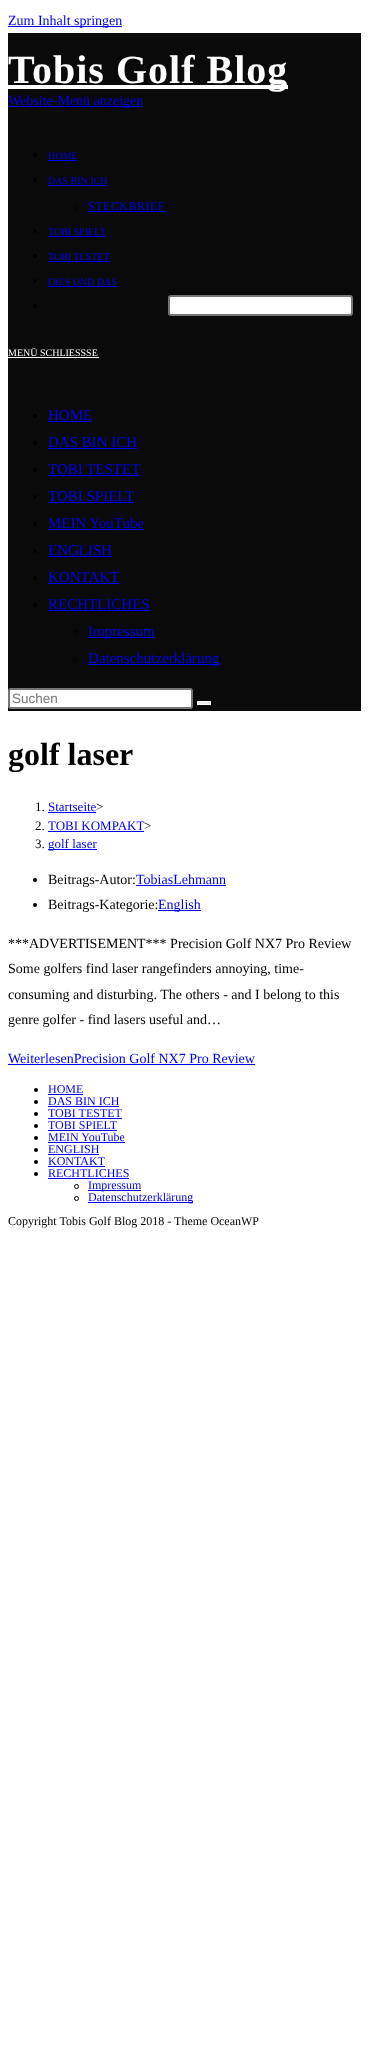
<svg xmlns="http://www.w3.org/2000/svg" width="369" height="2067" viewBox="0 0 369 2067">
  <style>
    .t1 { font: 14px Liberation Serif; fill: #00e; }
    .t2 { font: bold 40px Liberation Serif; letter-spacing: 1px; fill: #fff; }
    .t3 { font: 10px Liberation Serif; fill: #00e; }
    .t4 { font: 12px Liberation Serif; letter-spacing: 0.5px; fill: #00e; }
    .t5 { font: 10px Liberation Serif; fill: #fff; }
    .t6 { font: 15px Liberation Serif; fill: #00e; }
    .t7 { font: 13.5px Liberation Sans; fill: #757575; }
    .t8 { font: bold 32px Liberation Serif; fill: #000; }
    .t9 { font: 13px Liberation Serif; fill: #000; }
    .t10 { font: 13px Liberation Serif; fill: #00e; }
    .t11 { font: 14px Liberation Serif; fill: #000; }
    .t12 { font: 12px Liberation Serif; fill: #00e; }
    .t13 { font: 12px Liberation Serif; fill: #000; }
  </style>
  <rect width="100%" height="100%" fill="#fff"/>
  <rect x="8" y="26" width="114" height="1" fill="#00e"/>
  <text x="8" y="25" class="t1">Zum Inhalt springen</text>
  <rect x="8" y="33" width="353" height="678" fill="#0a0a0a"/>
  <rect x="8" y="85" width="280" height="4" fill="#fff"/>
  <text x="8" y="83" class="t2">Tobis Golf Blog</text>
  <rect x="8" y="106" width="135" height="1" fill="#00e"/>
  <text x="8" y="105" class="t1">Website-Menü anzeigen</text>
  <circle cx="35" cy="155" r="2" fill="#000"/>
  <text x="48" y="159" class="t3">HOME</text>
  <rect x="48" y="160" width="29" height="1" fill="#00e"/>
  <circle cx="35" cy="180" r="2" fill="#000"/>
  <text x="48" y="184" class="t3">DAS BIN ICH</text>
  <rect x="48" y="185" width="59" height="1" fill="#00e"/>
  <circle cx="75.5" cy="206.5" r="2" fill="none" stroke="#000"/>
  <text x="88" y="210" class="t4">STECKBRIEF</text>
  <rect x="88" y="211" width="78" height="1" fill="#00e"/>
  <circle cx="35" cy="231" r="2" fill="#000"/>
  <text x="48" y="235" class="t3">TOBI SPIELT</text>
  <rect x="48" y="236" width="58" height="1" fill="#00e"/>
  <circle cx="35" cy="256" r="2" fill="#000"/>
  <text x="48" y="260" class="t3">TOBI TESTET</text>
  <rect x="48" y="261" width="62" height="1" fill="#00e"/>
  <circle cx="35" cy="281" r="2" fill="#000"/>
  <text x="48" y="285" class="t3">DIES UND DAS</text>
  <rect x="48" y="286" width="69" height="1" fill="#00e"/>
  <circle cx="35" cy="306" r="2" fill="#000"/>
  <rect x="169" y="296" width="183" height="19" rx="2" fill="#fff" stroke="#767676" stroke-width="2"/>
  <text x="8" y="356" class="t5">MENÜ SCHLIESSSE</text>
  <rect x="8" y="357" width="91" height="1" fill="#fff"/>
  <circle cx="35" cy="416" r="2" fill="#000"/>
  <text x="48" y="420" class="t6">HOME</text>
  <rect x="48" y="421" width="44" height="1" fill="#00e"/>
  <circle cx="35" cy="443" r="2" fill="#000"/>
  <text x="48" y="447" class="t6">DAS BIN ICH</text>
  <rect x="48" y="448" width="89" height="1" fill="#00e"/>
  <circle cx="35" cy="470" r="2" fill="#000"/>
  <text x="48" y="474" class="t6">TOBI TESTET</text>
  <rect x="48" y="475" width="92" height="1" fill="#00e"/>
  <circle cx="35" cy="497" r="2" fill="#000"/>
  <text x="48" y="501" class="t6">TOBI SPIELT</text>
  <rect x="48" y="502" width="86" height="1" fill="#00e"/>
  <circle cx="35" cy="524" r="2" fill="#000"/>
  <text x="48" y="528" class="t6">MEIN YouTube</text>
  <rect x="48" y="529" width="96" height="1" fill="#00e"/>
  <circle cx="35" cy="551" r="2" fill="#000"/>
  <text x="48" y="555" class="t6">ENGLISH</text>
  <rect x="48" y="556" width="64" height="1" fill="#00e"/>
  <circle cx="35" cy="578" r="2" fill="#000"/>
  <text x="48" y="582" class="t6">KONTAKT</text>
  <rect x="48" y="583" width="71" height="1" fill="#00e"/>
  <circle cx="35" cy="605" r="2" fill="#000"/>
  <text x="48" y="609" class="t6">RECHTLICHES</text>
  <rect x="48" y="610" width="102" height="1" fill="#00e"/>
  <circle cx="75.5" cy="632.5" r="2" fill="none" stroke="#000"/>
  <rect x="88" y="637" width="67" height="1" fill="#00e"/>
  <text x="88" y="636" class="t6">Impressum</text>
  <circle cx="75.5" cy="659.5" r="2" fill="none" stroke="#000"/>
  <rect x="88" y="664" width="132" height="1" fill="#00e"/>
  <text x="88" y="663" class="t6">Datenschutzerklärung</text>
  <rect x="9" y="689" width="183" height="19" rx="2" fill="#fff" stroke="#767676" stroke-width="2"/>
  <text x="12" y="703" class="t7">Suchen</text>
  <rect x="197.5" y="701.5" width="13" height="3" fill="#efefef" stroke="#fff"/>
  <text x="8" y="765" class="t8">golf laser</text>
  <text x="35" y="811" class="t9">1.</text>
  <text x="48" y="811" class="t10">Startseite</text>
  <rect x="48" y="812" width="48" height="1" fill="#00e"/>
  <text x="96" y="811" class="t9">&gt;</text>
  <text x="35" y="830" class="t9">2.</text>
  <text x="48" y="830" class="t10">TOBI KOMPAKT</text>
  <rect x="48" y="831" width="96" height="1" fill="#00e"/>
  <text x="144" y="830" class="t9">&gt;</text>
  <text x="35" y="848" class="t9">3.</text>
  <rect x="48" y="849" width="49" height="1" fill="#00e"/>
  <text x="48" y="848" class="t10">golf laser</text>
  <circle cx="35" cy="880" r="2" fill="#000"/>
  <text x="48" y="884" class="t11">Beitrags-Autor:</text>
  <text x="136" y="884" class="t1">TobiasLehmann</text>
  <rect x="136" y="885" width="90" height="1" fill="#00e"/>
  <circle cx="35" cy="905" r="2" fill="#000"/>
  <text x="48" y="909" class="t11">Beitrags-Kategorie:</text>
  <rect x="158" y="910" width="43" height="1" fill="#00e"/>
  <text x="158" y="909" class="t1">English</text>
  <text x="8" y="948" class="t11">***ADVERTISEMENT*** Precision Golf NX7 Pro Review</text>
  <text x="8" y="973" class="t11">Some golfers find laser rangefinders annoying, time-</text>
  <text x="8" y="999" class="t11">consuming and disturbing. The others - and I belong to this</text>
  <text x="8" y="1024" class="t11">genre golfer - find lasers useful and…</text>
  <text x="8" y="1063" class="t1">WeiterlesenPrecision Golf NX7 Pro Review</text>
  <rect x="8" y="1064" width="247" height="1" fill="#00e"/>
  <circle cx="36" cy="1090" r="2" fill="#000"/>
  <text x="48" y="1093" class="t12">HOME</text>
  <rect x="48" y="1094" width="35" height="1" fill="#00e"/>
  <circle cx="36" cy="1102" r="2" fill="#000"/>
  <text x="48" y="1105" class="t12">DAS BIN ICH</text>
  <rect x="48" y="1106" width="71" height="1" fill="#00e"/>
  <circle cx="36" cy="1114" r="2" fill="#000"/>
  <text x="48" y="1117" class="t12">TOBI TESTET</text>
  <rect x="48" y="1118" width="74" height="1" fill="#00e"/>
  <circle cx="36" cy="1126" r="2" fill="#000"/>
  <text x="48" y="1129" class="t12">TOBI SPIELT</text>
  <rect x="48" y="1130" width="69" height="1" fill="#00e"/>
  <circle cx="36" cy="1138" r="2" fill="#000"/>
  <text x="48" y="1141" class="t12">MEIN YouTube</text>
  <rect x="48" y="1142" width="77" height="1" fill="#00e"/>
  <circle cx="36" cy="1150" r="2" fill="#000"/>
  <text x="48" y="1153" class="t12">ENGLISH</text>
  <rect x="48" y="1154" width="51" height="1" fill="#00e"/>
  <circle cx="36" cy="1162" r="2" fill="#000"/>
  <text x="48" y="1165" class="t12">KONTAKT</text>
  <rect x="48" y="1166" width="57" height="1" fill="#00e"/>
  <circle cx="36" cy="1174" r="2" fill="#000"/>
  <text x="48" y="1177" class="t12">RECHTLICHES</text>
  <rect x="48" y="1178" width="81" height="1" fill="#00e"/>
  <circle cx="76.5" cy="1186.5" r="2" fill="none" stroke="#000"/>
  <rect x="88" y="1190" width="53" height="1" fill="#00e"/>
  <text x="88" y="1189" class="t12">Impressum</text>
  <circle cx="76.5" cy="1198.5" r="2" fill="none" stroke="#000"/>
  <rect x="88" y="1202" width="105" height="1" fill="#00e"/>
  <text x="88" y="1201" class="t12">Datenschutzerklärung</text>
  <text x="8" y="1225" class="t13">Copyright Tobis Golf Blog 2018 - Theme OceanWP</text>
</svg>
